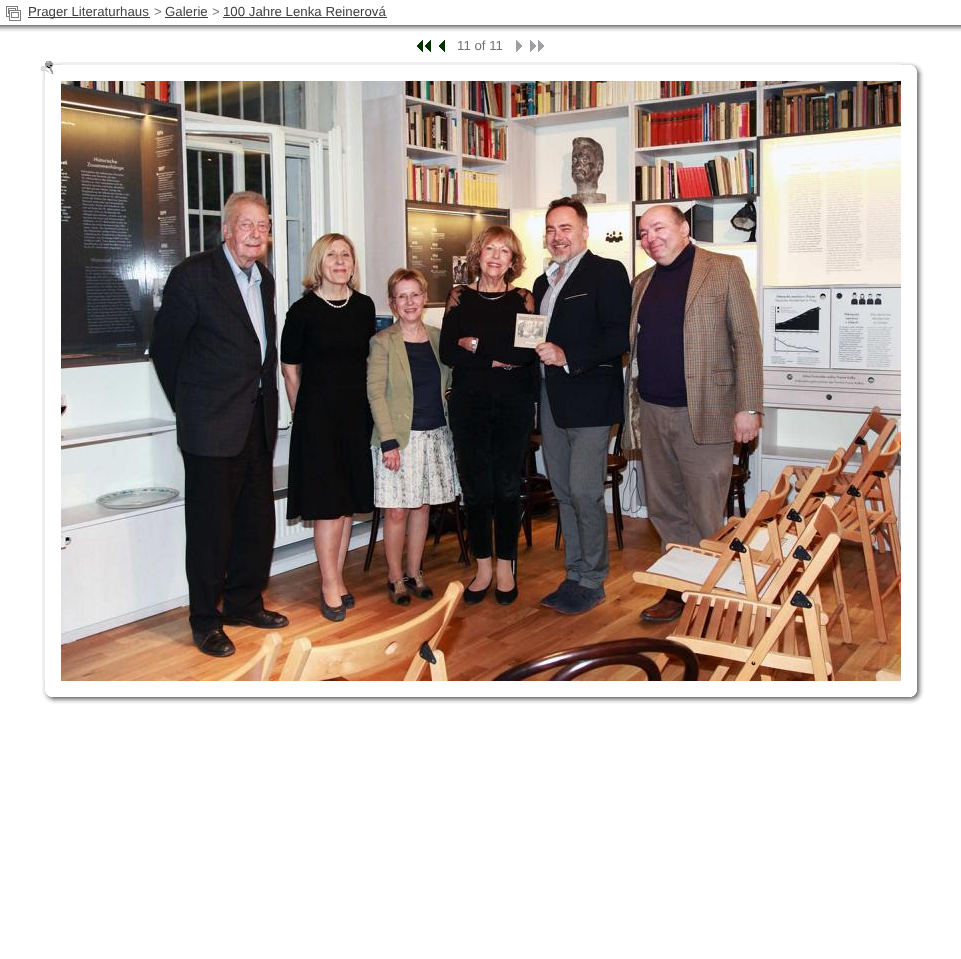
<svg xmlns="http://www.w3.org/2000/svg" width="961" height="959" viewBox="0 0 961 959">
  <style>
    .t1 { font: 13.25px Liberation Sans; fill: #404040; }
    .t2 { font: 13.25px Liberation Sans; fill: #737373; }
  </style>
  <rect width="100%" height="100%" fill="#fff"/>
  <image x="0" y="25" width="961" height="7" href="images/1.png"/>
  <image x="6" y="6" width="15" height="15" href="images/2.png"/>
  <rect x="28" y="17" width="122" height="1" fill="#404040"/>
  <text x="28" y="16" class="t1">Prager Literaturhaus</text>
  <text x="154" y="16" class="t2">&gt;</text>
  <text x="165" y="16" class="t1">Galerie</text>
  <rect x="165" y="17" width="43" height="1" fill="#404040"/>
  <text x="212" y="16" class="t2">&gt;</text>
  <text x="223" y="16" class="t1">100 Jahre Lenka Reinerová</text>
  <rect x="223" y="17" width="164" height="1" fill="#404040"/>
  <image x="417" y="40" width="14" height="12" href="images/3.png"/>
  <image x="439" y="40" width="6" height="12" href="images/4.png"/>
  <text x="457" y="50" class="t2">11 of 11</text>
  <image x="516" y="40" width="6" height="12" href="images/5.png"/>
  <image x="530" y="40" width="14" height="12" href="images/6.png"/>
  <image x="40" y="60" width="21" height="21" href="images/7.png"/>
  <rect x="61" y="62" width="840" height="3" fill="#efefef"/>
  <image x="901" y="62" width="23" height="19" href="images/8.png"/>
  <rect x="42" y="81" width="3" height="600" fill="#efefef"/>
  <image x="61" y="81" width="840" height="600" href="images/9.png"/>
  <image x="917" y="81" width="7" height="600" href="images/10.png"/>
  <image x="42" y="681" width="19" height="23" href="images/11.png"/>
  <image x="61" y="697" width="840" height="7" href="images/12.png"/>
  <image x="901" y="681" width="23" height="23" href="images/13.png"/>
</svg>
